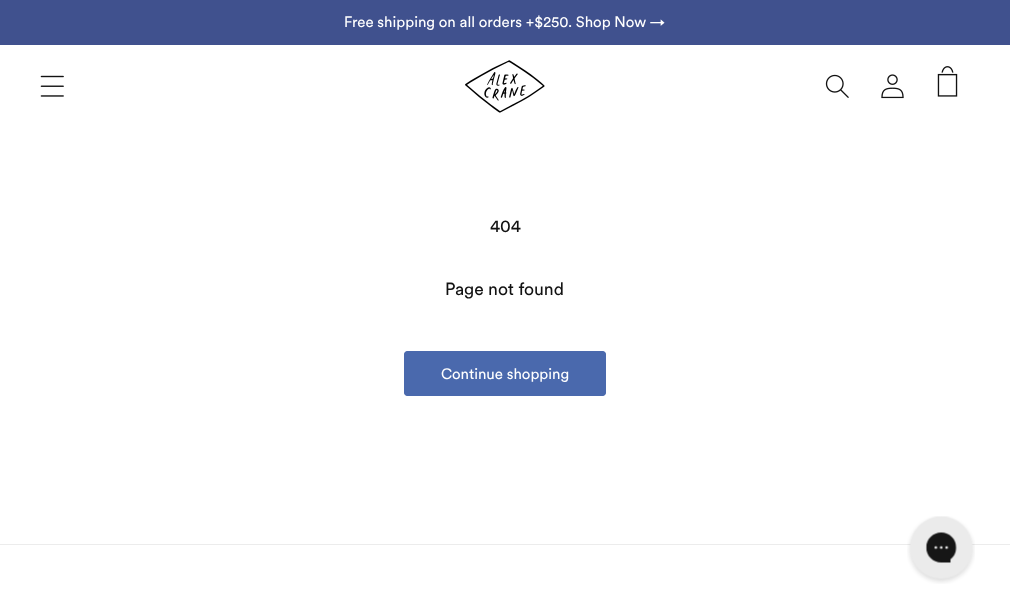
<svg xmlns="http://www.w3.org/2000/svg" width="1010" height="612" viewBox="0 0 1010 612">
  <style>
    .t1 { font: 15px Circular; fill: #fff; }
    .t2 { font: 17.5px Circular; fill: #121212; }
  </style>
  <rect width="100%" height="100%" fill="#fff"/>
  <rect x="0" y="0" width="1010" height="45" fill="#40518e"/>
  <text x="344" y="27" class="t1">Free shipping on all orders +$250. Shop Now →</text>
  <image x="40" y="75" width="24" height="22" href="images/1.png"/>
  <image x="465" y="60" width="80" height="53" href="images/2.png"/>
  <image x="825" y="74" width="24" height="24" href="images/3.png"/>
  <image x="881" y="74" width="23" height="25" href="images/4.png"/>
  <image x="937" y="66" width="21" height="31" href="images/5.png"/>
  <text x="490" y="232" class="t2">404</text>
  <text x="445" y="295" class="t2">Page not found</text>
  <rect x="404" y="351" width="202" height="45" rx="4" fill="#4a69ad"/>
  <rect x="404.5" y="351.5" width="201" height="44" rx="3.5" fill="none" stroke="#4a69ad"/>
  <text x="441" y="379" class="t1">Continue shopping</text>
  <rect x="0" y="544" width="1010" height="1" fill="#ececec"/>
  <image x="907" y="516" width="68" height="68" href="images/6.png"/>
</svg>
